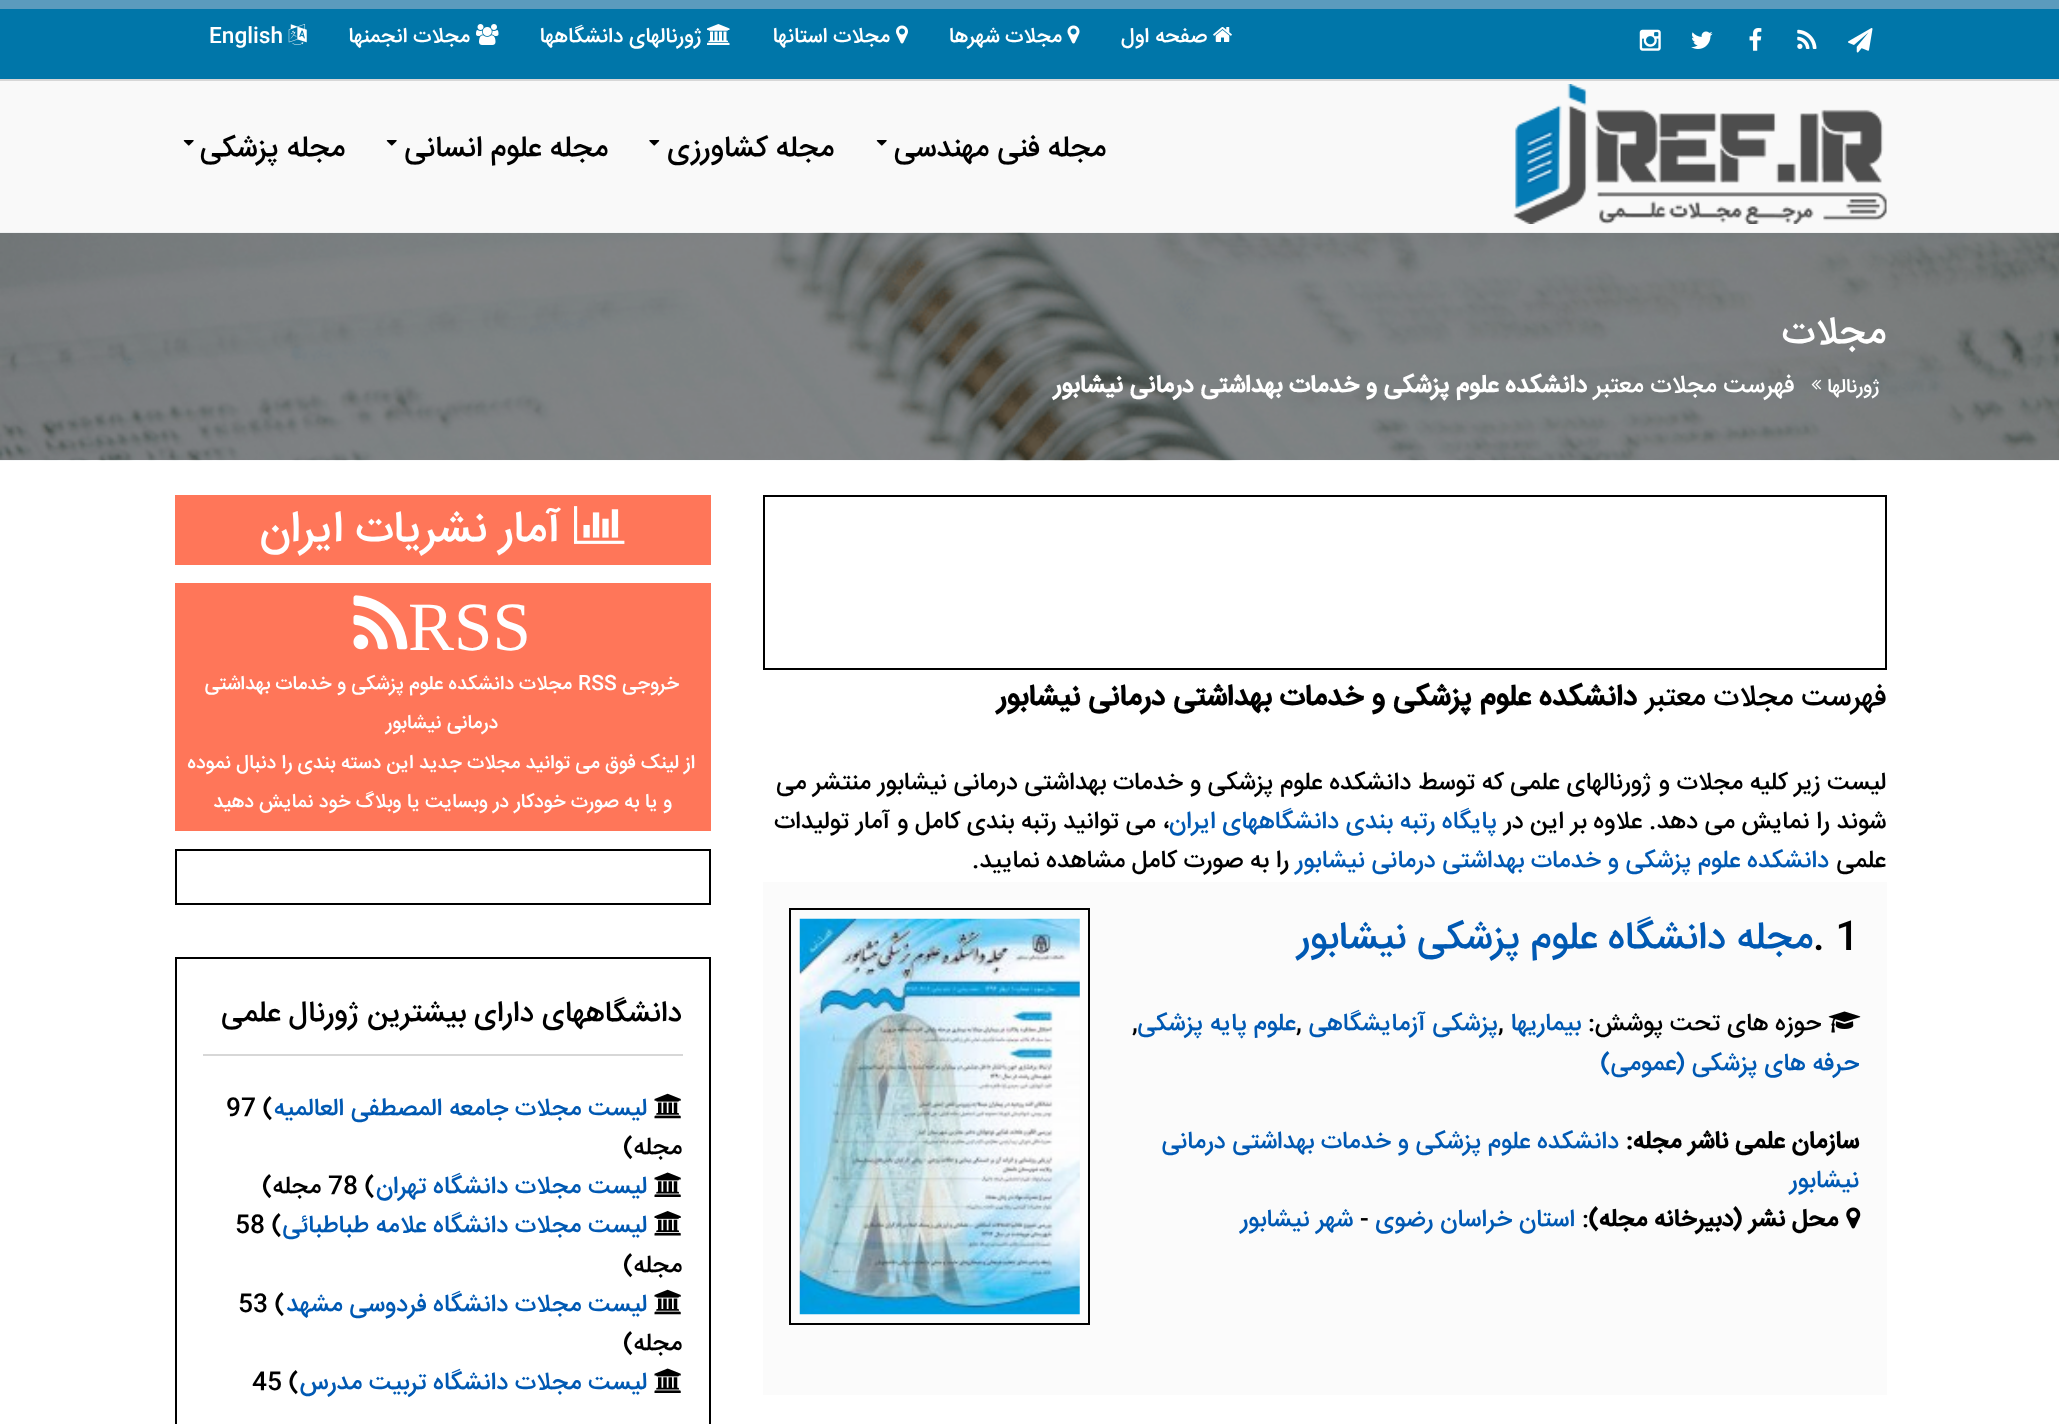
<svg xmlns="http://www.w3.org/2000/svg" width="2059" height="1424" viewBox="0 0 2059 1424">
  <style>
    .t1 { font: 500 21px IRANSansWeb; direction: rtl; fill: #fff; }
    .t2 { font: 500 21px IRANSansWeb; fill: #fff; }
    .t3 { font: 500 29.4px IRANSansWeb; direction: rtl; fill: #000; }
    .t4 { font: 500 38.5px IRANSansWeb; direction: rtl; fill: #fff; }
    .t5 { font: 500 19.6px IRANSansWeb; direction: rtl; fill: #fff; }
    .t6 { font: 500 24.5px IRANSansWeb; direction: rtl; fill: #fff; }
    .t7 { font: bold 24.5px IRANSansWeb; direction: rtl; fill: #fff; }
    .t8 { font: bold 29.4px IRANSansWeb; direction: rtl; fill: #000; }
    .t9 { font: 500 24.5px IRANSansWeb; direction: rtl; fill: #000; }
    .t10 { font: 500 24.5px IRANSansWeb; direction: rtl; fill: #0059b3; }
    .t11 { font: 500 38.5px IRANSansWeb; fill: #000; }
    .t12 { font: 500 38.5px IRANSansWeb; direction: rtl; fill: #0059b3; }
    .t13 { font: 500 24.5px IRANSansWeb; fill: #000; }
    .t14 { font: bold 24.5px IRANSansWeb; direction: rtl; fill: #000; }
    .t15 { font: 500 44px IRANSansWeb; direction: rtl; fill: #fff; }
    .t16 { font: 69px Liberation Serif; fill: #fff; }
    .t17 { font: 500 19.6px IRANSansWeb; fill: #fff; }
  </style>
  <rect width="100%" height="100%" fill="#0076a9"/>
  <rect x="0" y="0" width="2059" height="9" fill="#5b9bbd"/>
  <image x="1848" y="28" width="25" height="25" href="images/1.png"/>
  <image x="1797" y="29" width="20" height="20" href="images/2.png"/>
  <image x="1749" y="28" width="13" height="23" href="images/3.png"/>
  <image x="1691" y="31" width="22" height="18" href="images/4.png"/>
  <image x="1639" y="29" width="22" height="22" href="images/5.png"/>
  <image x="1213" y="27" width="19" height="15" href="images/6.png"/>
  <text x="1207" y="42" class="t1">صفحه اول</text>
  <image x="1067" y="25" width="13" height="19" href="images/7.png"/>
  <text x="1062" y="42" class="t1">مجلات شهرها</text>
  <image x="896" y="25" width="12" height="19" href="images/8.png"/>
  <text x="890" y="42" class="t1">مجلات استانها</text>
  <image x="707" y="24" width="23" height="21" href="images/9.png"/>
  <text x="702" y="42" class="t1">ژورنالهای دانشگاهها</text>
  <image x="476" y="24" width="23" height="21" href="images/10.png"/>
  <text x="470" y="42" class="t1">مجلات انجمنها</text>
  <image x="288" y="24" width="19" height="21" href="images/11.png"/>
  <text x="209" y="42" class="t2">English</text>
  <rect x="0" y="81" width="2059" height="152" fill="#f9f9f9"/>
  <rect x="0" y="79" width="2059" height="2" fill="#d7d7d7"/>
  <image x="1513" y="84" width="374" height="140" href="images/12.png"/>
  <text x="1106" y="156" class="t3">مجله فنی مهندسی</text>
  <image x="876" y="140" width="11" height="6" href="images/13.png"/>
  <text x="834" y="156" class="t3">مجله کشاورزی</text>
  <image x="649" y="140" width="11" height="6" href="images/14.png"/>
  <text x="608" y="156" class="t3">مجله علوم انسانی</text>
  <image x="386" y="140" width="11" height="6" href="images/13.png"/>
  <text x="345" y="156" class="t3">مجله پزشکی</text>
  <image x="183" y="140" width="11" height="6" href="images/13.png"/>
  <rect x="0" y="460" width="2059" height="964" fill="#fff"/>
  <image x="0" y="232" width="2059" height="229" href="images/15.png"/>
  <text x="1886" y="343" class="t4">مجلات</text>
  <text x="1880" y="392" class="t5">ژورنالها</text>
  <image x="1811" y="379" width="11" height="11" href="images/16.png"/>
  <text x="1794" y="392" class="t6">فهرست مجلات معتبر</text>
  <text x="1587" y="392" class="t7">دانشکده علوم پزشکی و خدمات بهداشتی درمانی نیشابور</text>
  <rect x="764" y="496" width="1122" height="173" fill="none" stroke="#000" stroke-width="2"/>
  <text x="1886" y="705" class="t3">فهرست مجلات معتبر</text>
  <text x="1637" y="705" class="t8">دانشکده علوم پزشکی و خدمات بهداشتی درمانی نیشابور</text>
  <text x="1886" y="789" class="t9">لیست زیر کلیه مجلات و ژورنالهای علمی که توسط دانشکده علوم پزشکی و خدمات بهداشتی درمانی نیشابور منتشر می</text>
  <text x="1886" y="828" class="t9">شوند را نمایش می دهد. علاوه بر این در</text>
  <text x="1497" y="828" class="t10">پایگاه رتبه بندی دانشگاههای ایران</text>
  <text x="1169" y="828" class="t9">، می توانید رتبه بندی کامل و آمار تولیدات</text>
  <text x="1886" y="867" class="t9">علمی</text>
  <text x="1829" y="867" class="t10">دانشکده علوم پزشکی و خدمات بهداشتی درمانی نیشابور</text>
  <text x="1289" y="867" class="t9">را به صورت کامل مشاهده نمایید.</text>
  <rect x="763" y="882" width="1124" height="513" fill="#fbfbfb"/>
  <text x="1813" y="948" class="t11">. 1</text>
  <text x="1813" y="948" class="t12">مجله دانشگاه علوم پزشکی نیشابور</text>
  <rect x="790" y="909" width="299" height="415" fill="none" stroke="#000" stroke-width="2"/>
  <image x="799" y="918" width="281" height="397" href="images/17.png"/>
  <image x="1828" y="1011" width="33" height="22" href="images/18.png"/>
  <text x="1821" y="1030" class="t9">حوزه های تحت پوشش:</text>
  <text x="1581" y="1030" class="t10">بیماریها</text>
  <text x="1498" y="1030" class="t13">,</text>
  <text x="1498" y="1030" class="t10">پزشکی آزمایشگاهی</text>
  <text x="1296" y="1030" class="t13">,</text>
  <text x="1296" y="1030" class="t10">علوم پایه پزشکی</text>
  <text x="1132" y="1030" class="t13">,</text>
  <text x="1859" y="1070" class="t10">حرفه های پزشکی (عمومی)</text>
  <text x="1859" y="1148" class="t14">سازمان علمی ناشر مجله:</text>
  <text x="1619" y="1148" class="t10">دانشکده علوم پزشکی و خدمات بهداشتی درمانی</text>
  <text x="1859" y="1187" class="t10">نیشابور</text>
  <image x="1846" y="1207" width="15" height="22" href="images/19.png"/>
  <text x="1838" y="1226" class="t14">محل نشر (دبیرخانه مجله)</text>
  <text x="1582" y="1226" class="t13">:</text>
  <text x="1575" y="1226" class="t10">استان خراسان رضوی</text>
  <text x="1360" y="1226" class="t13">-</text>
  <text x="1353" y="1226" class="t10">شهر نیشابور</text>
  <rect x="175" y="495" width="536" height="70" fill="#ff7659"/>
  <image x="574" y="506" width="51" height="38" href="images/20.png"/>
  <text x="561" y="541" class="t15">آمار نشریات ایران</text>
  <rect x="175" y="583" width="536" height="248" fill="#ff7659"/>
  <text x="408" y="650" class="t16">RSS</text>
  <image x="353" y="595" width="55" height="55" href="images/21.png"/>
  <text x="679" y="689" class="t5">خروجی</text>
  <text x="578" y="689" class="t17">RSS</text>
  <text x="572" y="689" class="t5">مجلات</text>
  <text x="514" y="689" class="t5">دانشکده علوم پزشکی و خدمات بهداشتی</text>
  <text x="498" y="728" class="t5">درمانی نیشابور</text>
  <text x="695" y="768" class="t5">از لینک فوق می توانید مجلات جدید این دسته بندی را دنبال نموده</text>
  <text x="672" y="807" class="t5">و یا به صورت خودکار در وبسایت یا وبلاگ خود نمایش دهید</text>
  <rect x="176" y="850" width="534" height="54" fill="none" stroke="#000" stroke-width="2"/>
  <rect x="176" y="958" width="534" height="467" fill="none" stroke="#000" stroke-width="2"/>
  <text x="682" y="1021" class="t3">دانشگاههای دارای بیشترین ژورنال علمی</text>
  <rect x="203" y="1054" width="480" height="2" fill="#d7d7d7"/>
  <image x="654" y="1093" width="27" height="26" href="images/22.png"/>
  <text x="647" y="1115" class="t10">لیست مجلات جامعه المصطفی العالمیه</text>
  <text x="226" y="1115" class="t13">97 (</text>
  <text x="682" y="1154" class="t9">مجله)</text>
  <image x="654" y="1172" width="27" height="25" href="images/23.png"/>
  <text x="647" y="1193" class="t10">لیست مجلات دانشگاه تهران</text>
  <text x="328" y="1193" class="t13">78 (</text>
  <text x="321" y="1193" class="t9">مجله)</text>
  <image x="654" y="1211" width="27" height="25" href="images/24.png"/>
  <text x="647" y="1232" class="t10">لیست مجلات دانشگاه علامه طباطبائی</text>
  <text x="235" y="1232" class="t13">58 (</text>
  <text x="682" y="1272" class="t9">مجله)</text>
  <image x="654" y="1289" width="27" height="26" href="images/22.png"/>
  <text x="647" y="1311" class="t10">لیست مجلات دانشگاه فردوسی مشهد</text>
  <text x="238" y="1311" class="t13">53 (</text>
  <text x="682" y="1350" class="t9">مجله)</text>
  <image x="654" y="1368" width="27" height="25" href="images/23.png"/>
  <text x="647" y="1389" class="t10">لیست مجلات دانشگاه تربیت مدرس</text>
  <text x="252" y="1389" class="t13">45 (</text>
</svg>
